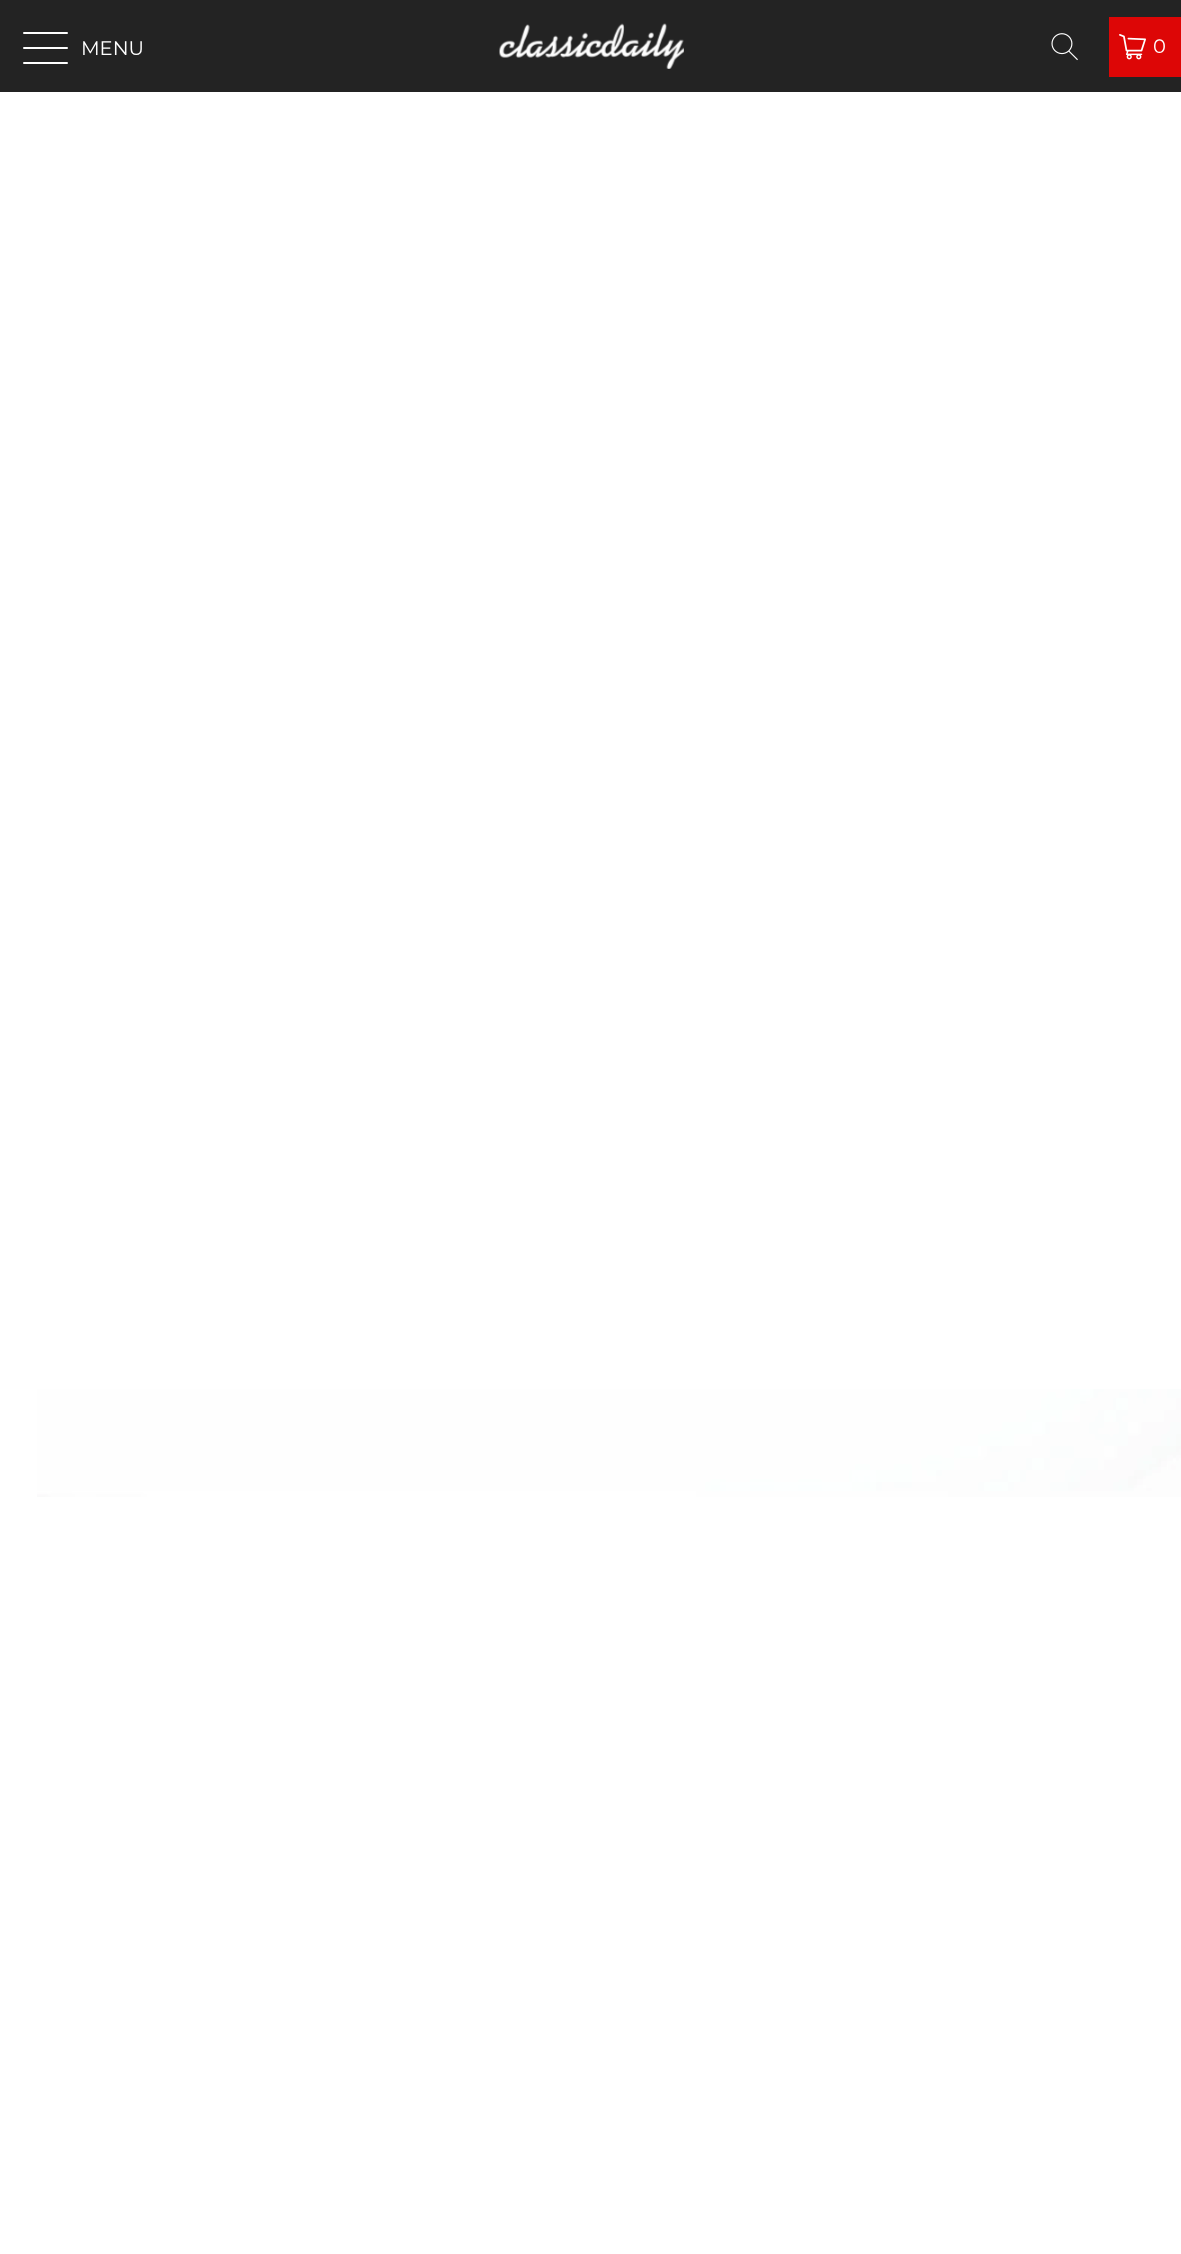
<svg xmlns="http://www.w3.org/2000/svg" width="1181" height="2254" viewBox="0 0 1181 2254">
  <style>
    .t1 { font: 19.5px Montserrat; fill: #fff; }
    .t2 { font: 19.5px Montserrat; letter-spacing: 2px; fill: #fff; }
  </style>
  <rect width="100%" height="100%" fill="#fff"/>
  <image x="37" y="1389" width="1144" height="108" href="images/1.png"/>
  <rect x="0" y="0" width="1181" height="92" fill="#232323"/>
  <rect x="23" y="32" width="45" height="2" rx="1" fill="#fff"/>
  <rect x="23" y="47" width="45" height="2" rx="1" fill="#fff"/>
  <rect x="23" y="62" width="45" height="2" rx="1" fill="#fff"/>
  <text x="81" y="55" class="t1">MENU</text>
  <image x="499" y="23" width="185" height="46" href="images/2.png"/>
  <image x="1051" y="33" width="27" height="28" href="images/3.png"/>
  <rect x="1109" y="17" width="72" height="60" fill="#dd0606"/>
  <image x="1119" y="34" width="27" height="26" href="images/4.png"/>
  <text x="1153" y="53" class="t2">0</text>
</svg>
